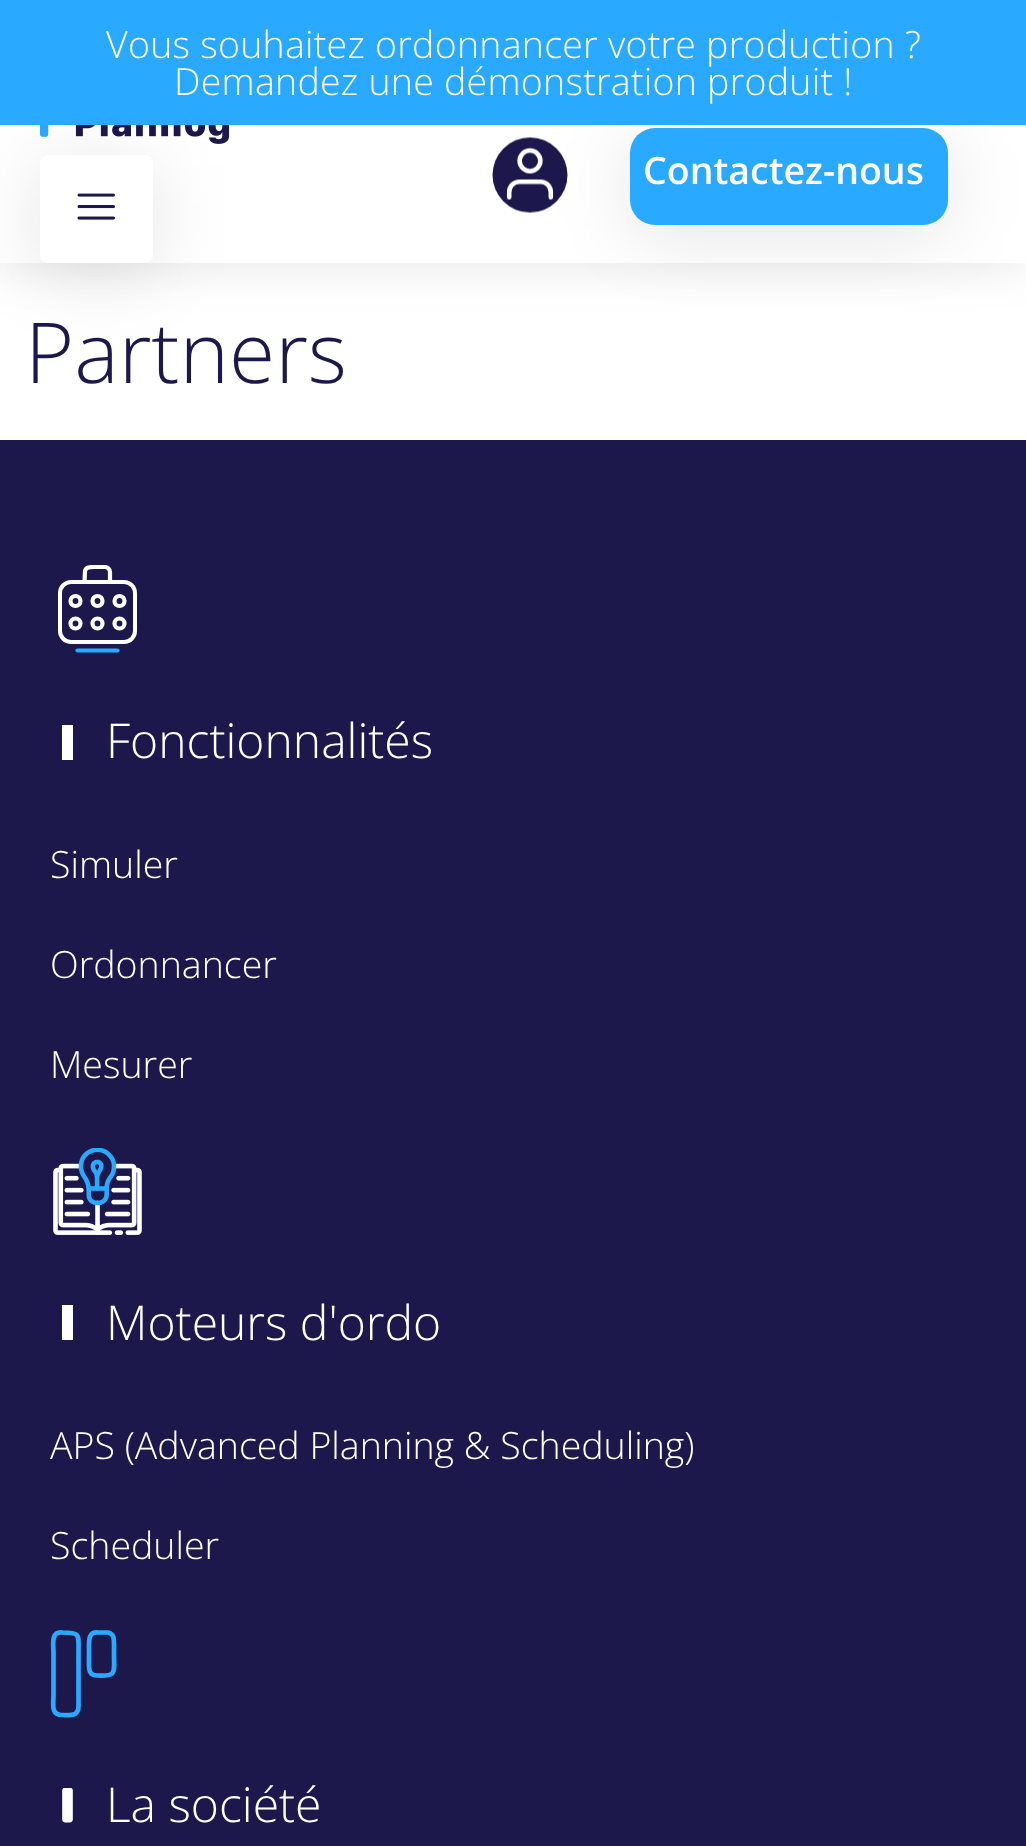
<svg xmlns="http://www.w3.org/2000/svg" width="1026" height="1846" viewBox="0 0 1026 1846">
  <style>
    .t1 { font: 300 37.5px Open Sans; letter-spacing: 0.25px; fill: #fff; }
    .t2 { font: 600 37.5px Open Sans; fill: #fff; }
    .t3 { font: 300 84px Open Sans; fill: #1d184c; }
    .t4 { font: 300 48px Open Sans; fill: #fff; }
    .t5 { font: 300 37.5px Open Sans; fill: #fff; }
  </style>
  <defs>
    <clipPath id="clip1"><rect x="50" y="565" width="95" height="88"/></clipPath>
  </defs>
  <rect width="100%" height="100%" fill="#fff"/>
  <rect x="0" y="88" width="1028" height="175" fill="#0000001a" filter="blur(25px)"/>
  <rect x="0" y="125" width="1026" height="138" fill="#fff"/>
  <image x="40" y="125" width="190" height="19" href="images/2.png"/>
  <rect x="40" y="165" width="113" height="108" rx="8" fill="#0000001a" filter="blur(37.5px)"/>
  <image x="492" y="137" width="76" height="76" href="images/3.png"/>
  <rect x="630" y="138" width="318" height="97" rx="25" fill="#0000001a" filter="blur(37.5px)"/>
  <rect x="0" y="0" width="1026" height="125" fill="#29a9ff"/>
  <text x="106" y="58" class="t1">Vous souhaitez ordonnancer votre production ?</text>
  <text x="174" y="95" class="t1">Demandez une démonstration produit !</text>
  <rect x="40" y="155" width="113" height="108" rx="8" fill="#fff"/>
  <image x="77" y="193" width="38" height="27" href="images/1.png"/>
  <rect x="630" y="128" width="318" height="97" rx="25" fill="#29a9ff"/>
  <text x="643" y="184" class="t2">Contactez-nous</text>
  <text x="25" y="383" class="t3">Partners</text>
  <rect x="0" y="440" width="1026" height="1406" fill="#1d184c"/>
  <path d="M117.5 650.5H77.5" fill="none" stroke="#29a9ff" stroke-width="4.2" stroke-linecap="round" stroke-linejoin="round"/>
  <rect x="60" y="582" width="75" height="60" rx="11" fill="none" stroke="#fff" stroke-width="4"/>
  <g clip-path="url(#clip1)">
    <path d="M105 567H95C91 567 86 566.5 85 571L84.5 582H110V572C110 569.5 107.5 567 105 567Z" fill="none" stroke="#fff" stroke-width="4.2" stroke-linecap="round" stroke-linejoin="round"/>
  </g>
  <circle cx="75.5" cy="601" r="5" fill="none" stroke="#fff" stroke-width="4.2"/>
  <circle cx="97.5" cy="601" r="5" fill="none" stroke="#fff" stroke-width="4.2"/>
  <circle cx="119.5" cy="601" r="5" fill="none" stroke="#fff" stroke-width="4.2"/>
  <circle cx="75.5" cy="623.5" r="5" fill="none" stroke="#fff" stroke-width="4.2"/>
  <circle cx="97.5" cy="623.5" r="5" fill="none" stroke="#fff" stroke-width="4.2"/>
  <circle cx="119.5" cy="623.5" r="5" fill="none" stroke="#fff" stroke-width="4.2"/>
  <rect x="62" y="725" width="11" height="35" fill="#fff"/>
  <text x="106" y="758" class="t4">Fonctionnalités</text>
  <text x="50" y="878" class="t5">Simuler</text>
  <text x="50" y="978" class="t5">Ordonnancer</text>
  <text x="50" y="1078" class="t5">Mesurer</text>
  <image x="53" y="1148" width="89" height="87" href="images/4.png"/>
  <rect x="62" y="1305" width="11" height="35" fill="#fff"/>
  <text x="106" y="1340" class="t4">Moteurs d'ordo</text>
  <text x="50" y="1459" class="t5">APS (Advanced Planning &amp; Scheduling)</text>
  <text x="50" y="1559" class="t5">Scheduler</text>
  <path d="M98.5 1632.5H108C114.5 1633.5 114 1640 114 1645.5V1654C114 1673 117 1676.5 97 1675.5C88.5 1675.5 89 1668.5 89 1662V1645.5C89 1639 89 1631.5 98.5 1632.5ZM62.5 1632.5C80.5 1632.5 78.5 1634 78.5 1652.5V1706C78.5 1716.5 71 1715 62.5 1715C50.5 1715.5 53.5 1704 53.5 1695V1652.5C53.5 1645 50.5 1631 62.5 1632.5Z" fill="none" stroke="#29a9ff" stroke-width="4.7"/>
  <image x="62" y="1788" width="11" height="35" href="images/5.png"/>
  <text x="106" y="1822" class="t4">La société</text>
</svg>
